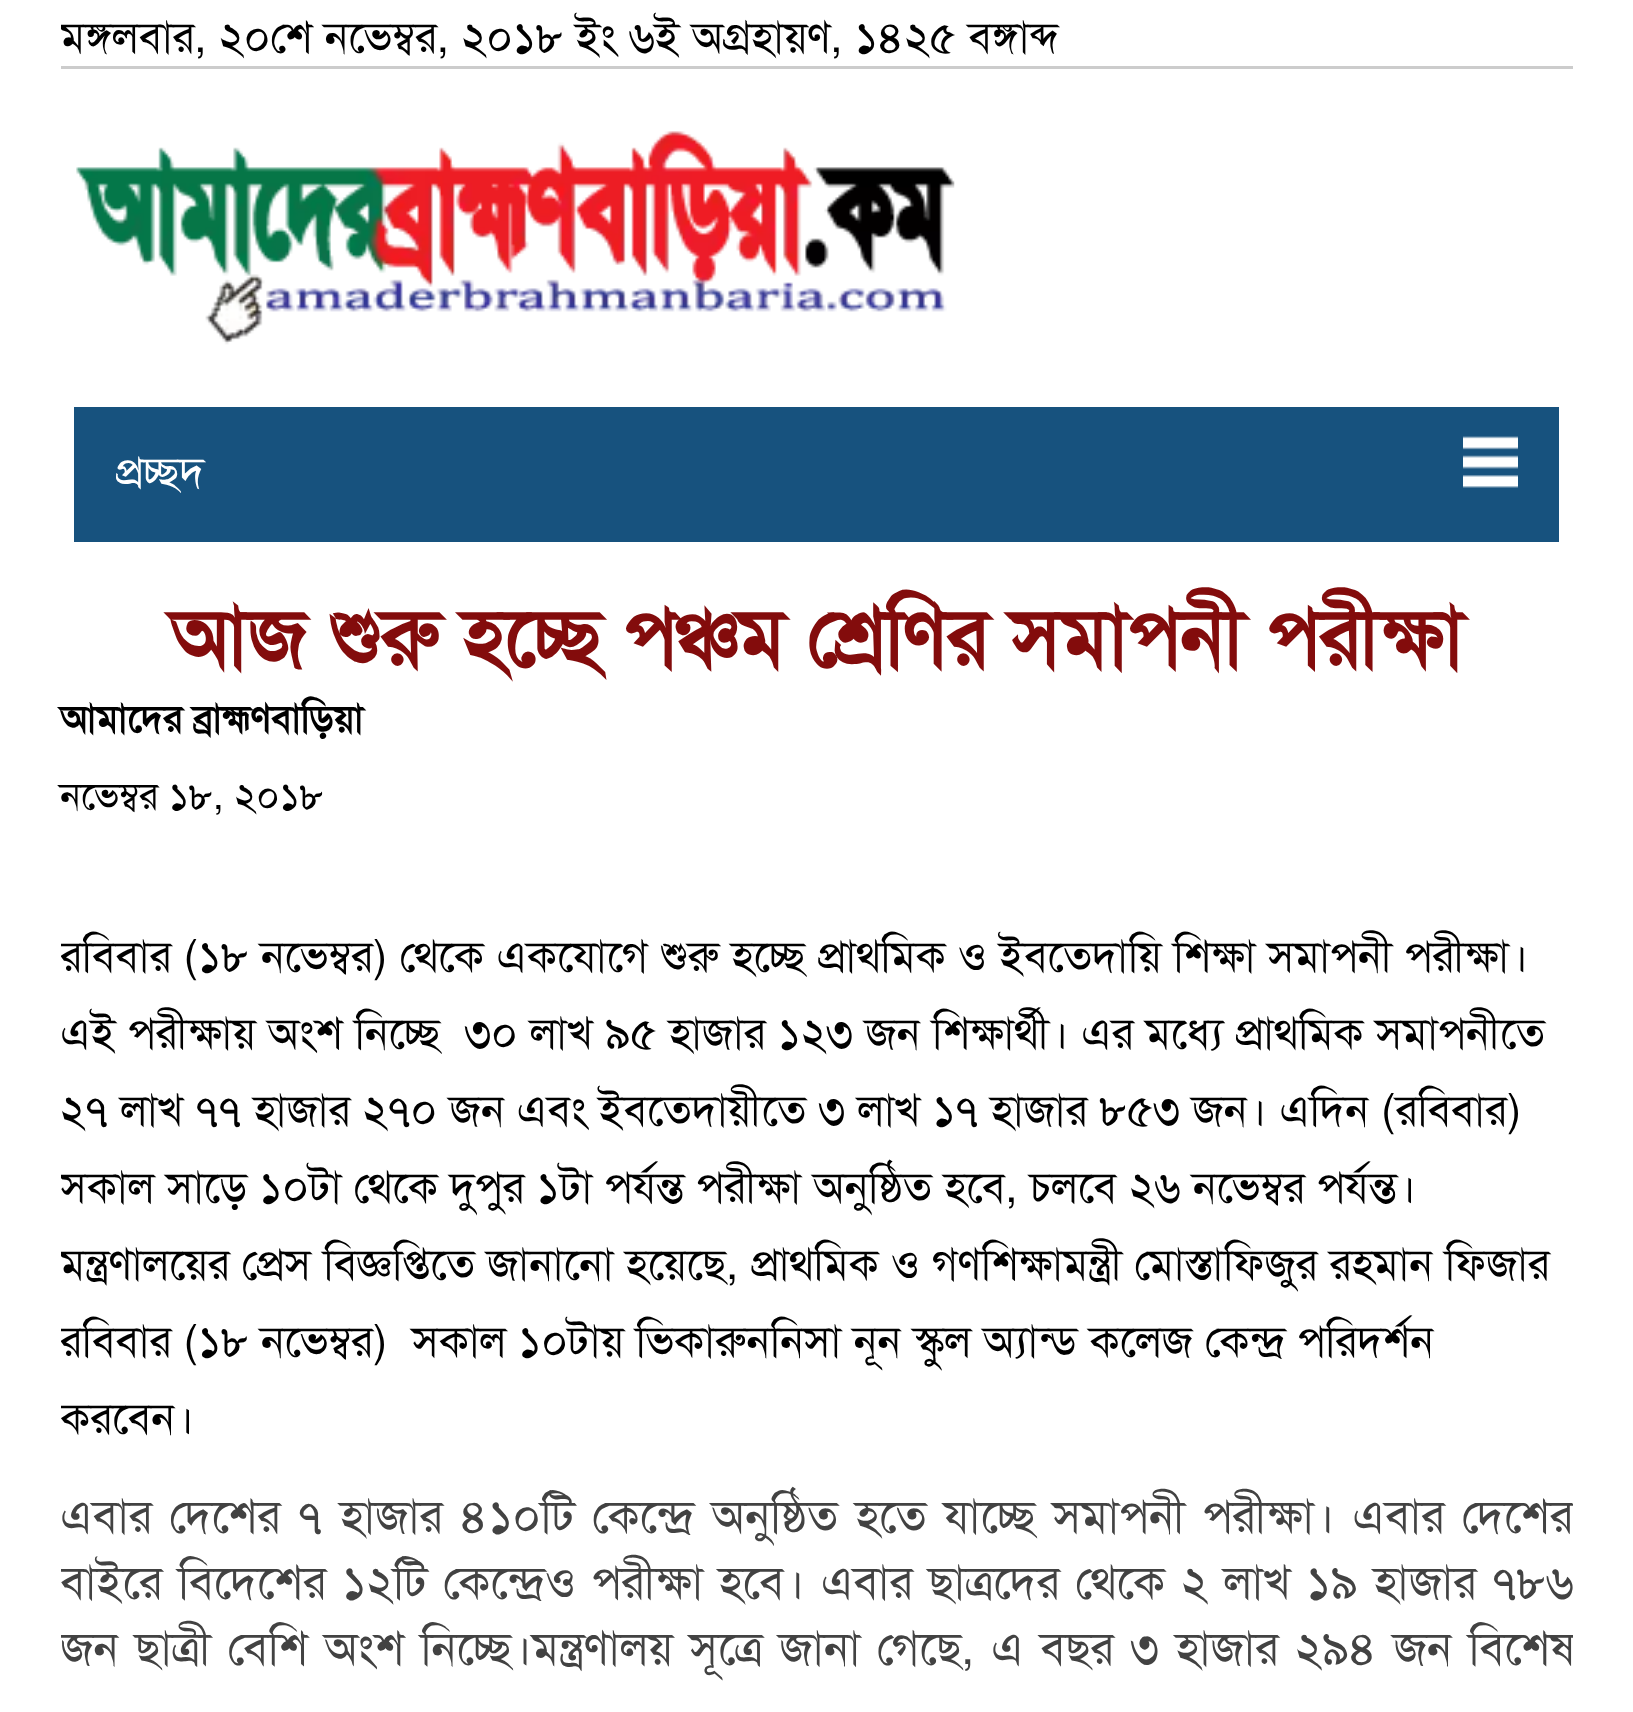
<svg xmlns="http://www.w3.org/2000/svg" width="1633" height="1712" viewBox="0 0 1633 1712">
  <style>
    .t1 { font: 44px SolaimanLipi; fill: #000; }
    .t2 { font: 44px SolaimanLipi; fill: #fff; }
    .t3 { font: bold 82.5px SolaimanLipi; fill: #830c0c; }
    .t4 { font: bold 38.5px SolaimanLipi; fill: #000; }
    .t5 { font: 38.5px SolaimanLipi; fill: #000; }
    .t6 { font: 46.75px SolaimanLipi; fill: #424242; }
  </style>
  <defs>
    <clipPath id="clip1"><rect x="61" y="0" width="1512" height="66"/></clipPath>
    <clipPath id="clip2"><rect x="61" y="836" width="1512" height="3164"/></clipPath>
  </defs>
  <rect width="100%" height="100%" fill="#fff"/>
  <rect x="61" y="66" width="1512" height="3" fill="#ccc"/>
  <g clip-path="url(#clip1)">
    <text x="60" y="52" class="t1">মঙ্গলবার, ২০শে নভেম্বর, ২০১৮ ইং ৬ই অগ্রহায়ণ, ১৪২৫ বঙ্গাব্দ</text>
  </g>
  <image x="76" y="131" width="879" height="214" href="images/1.png"/>
  <rect x="74" y="407" width="1485" height="135" fill="#17527e"/>
  <text x="115" y="487" class="t2">প্রচ্ছদ</text>
  <image x="1463" y="436" width="55" height="52" href="images/2.png"/>
  <text x="170" y="666" class="t3">আজ শুরু হচ্ছে পঞ্চম শ্রেণির সমাপনী পরীক্ষা</text>
  <text x="60" y="732" class="t4">আমাদের ব্রাহ্মণবাড়িয়া</text>
  <text x="60" y="809" class="t5">নভেম্বর ১৮, ২০১৮</text>
  <g clip-path="url(#clip2)">
    <text x="60" y="971" class="t1">রবিবার (১৮ নভেম্বর) থেকে একযোগে শুরু হচ্ছে প্রাথমিক ও ইবতেদায়ি শিক্ষা সমাপনী পরীক্ষা।</text>
  </g>
  <text x="60" y="1048" class="t1" xml:space="preserve">এই পরীক্ষায় অংশ নিচ্ছে  ৩০ লাখ ৯৫ হাজার ১২৩ জন শিক্ষার্থী। এর মধ্যে প্রাথমিক সমাপনীতে</text>
  <text x="60" y="1125" class="t1">২৭ লাখ ৭৭ হাজার ২৭০ জন এবং ইবতেদায়ীতে ৩ লাখ ১৭ হাজার ৮৫৩ জন। এদিন (রবিবার)</text>
  <g clip-path="url(#clip2)">
    <text x="60" y="1202" class="t1">সকাল সাড়ে ১০টা থেকে দুপুর ১টা পর্যন্ত পরীক্ষা অনুষ্ঠিত হবে, চলবে ২৬ নভেম্বর পর্যন্ত।</text>
    <text x="60" y="1279" class="t1">মন্ত্রণালয়ের প্রেস বিজ্ঞপ্তিতে জানানো হয়েছে, প্রাথমিক ও গণশিক্ষামন্ত্রী মোস্তাফিজুর রহমান ফিজার</text>
    <text x="60" y="1356" class="t1" xml:space="preserve">রবিবার (১৮ নভেম্বর)  সকাল ১০টায় ভিকারুননিসা নূন স্কুল অ্যান্ড কলেজ কেন্দ্র পরিদর্শন</text>
    <text x="60" y="1433" class="t1">করবেন।</text>
    <text x="60" y="1532" word-spacing="4.6" class="t6">এবার দেশের ৭ হাজার ৪১০টি কেন্দ্রে অনুষ্ঠিত হতে যাচ্ছে সমাপনী পরীক্ষা। এবার দেশের</text>
    <text x="60" y="1598" word-spacing="2.9" class="t6">বাইরে বিদেশের ১২টি কেন্দ্রেও পরীক্ষা হবে। এবার ছাত্রদের থেকে ২ লাখ ১৯ হাজার ৭৮৬</text>
    <text x="60" y="1664" word-spacing="3.75" class="t6">জন ছাত্রী বেশি অংশ নিচ্ছে।মন্ত্রণালয় সূত্রে জানা গেছে, এ বছর ৩ হাজার ২৯৪ জন বিশেষ</text>
  </g>
</svg>
